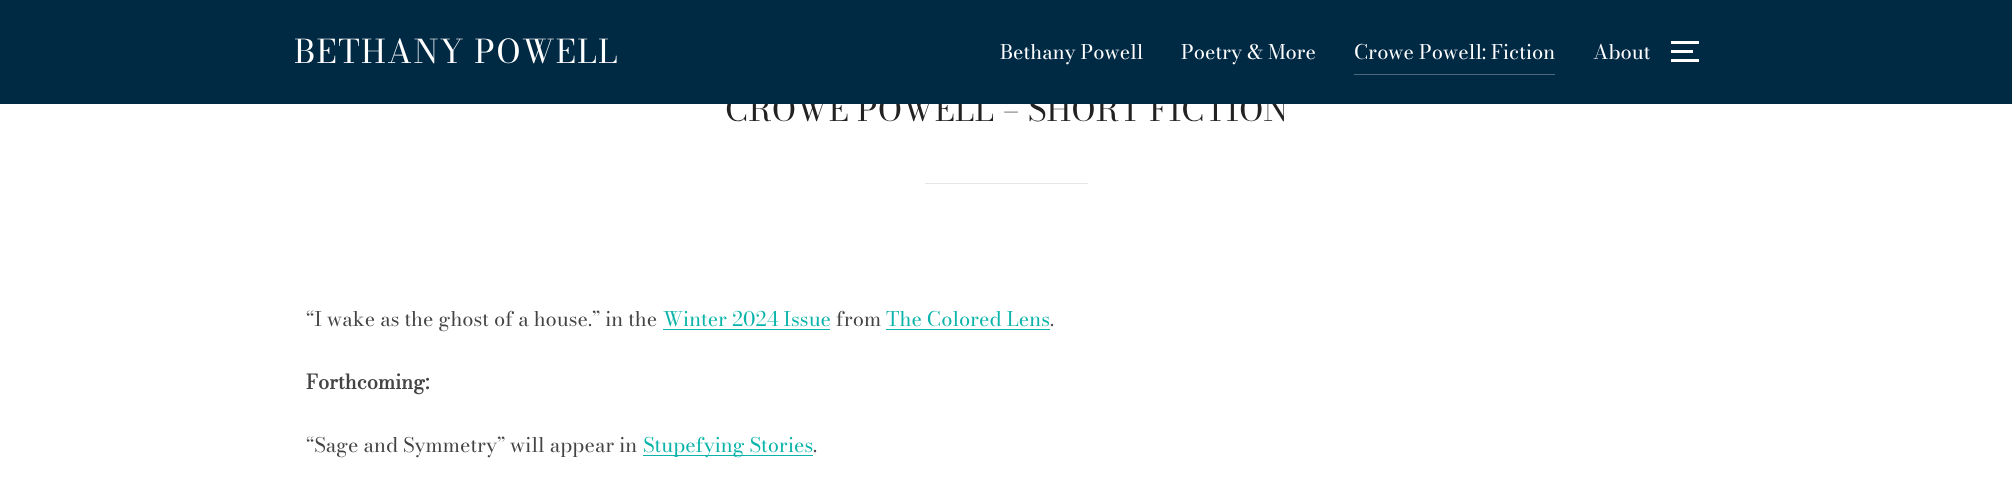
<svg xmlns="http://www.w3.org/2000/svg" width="2012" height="478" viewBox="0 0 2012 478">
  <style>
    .t1 { font: 32.5px Bodoni Moda; fill: #222; }
    .t2 { font: 32.5px Bodoni Moda; letter-spacing: 1.25px; fill: #fff; }
    .t3 { font: 20px Bodoni Moda; fill: #fff; }
    .t4 { font: 20px Bodoni Moda; fill: #444; }
    .t5 { font: 20px Bodoni Moda; fill: #0bb4aa; }
    .t6 { font: bold 20px Bodoni Moda; fill: #444; }
  </style>
  <rect width="100%" height="100%" fill="#fff"/>
  <text x="725" y="121" class="t1">CROWE POWELL – SHORT FICTION</text>
  <rect x="0" y="0" width="2012" height="104" fill="#002944"/>
  <text x="294" y="63" class="t2">BETHANY POWELL</text>
  <text x="1000" y="59" class="t3">Bethany Powell</text>
  <text x="1181" y="59" class="t3">Poetry &amp; More</text>
  <rect x="1354" y="74" width="201" height="1" fill="#4d697c"/>
  <text x="1354" y="59" class="t3">Crowe Powell: Fiction</text>
  <text x="1593" y="59" class="t3">About</text>
  <rect x="1671" y="41" width="28" height="3" fill="#fff"/>
  <rect x="1671" y="50" width="22" height="3" fill="#fff"/>
  <rect x="1671" y="59" width="28" height="3" fill="#fff"/>
  <rect x="925" y="183" width="163" height="1" fill="#e6e6e6"/>
  <text x="306" y="326" class="t4">“I wake as the ghost of a house.” in the</text>
  <text x="663" y="326" class="t5">Winter 2024 Issue</text>
  <rect x="663" y="329" width="167" height="1" fill="#0bb4aa"/>
  <text x="836" y="326" class="t4">from</text>
  <text x="886" y="326" class="t5">The Colored Lens</text>
  <rect x="886" y="329" width="164" height="1" fill="#0bb4aa"/>
  <text x="1050" y="326" class="t4">.</text>
  <text x="306" y="389" class="t6">Forthcoming:</text>
  <text x="306" y="452" class="t4">“Sage and Symmetry” will appear in</text>
  <rect x="643" y="455" width="170" height="1" fill="#0bb4aa"/>
  <text x="643" y="452" class="t5">Stupefying Stories</text>
  <text x="813" y="452" class="t4">.</text>
</svg>
